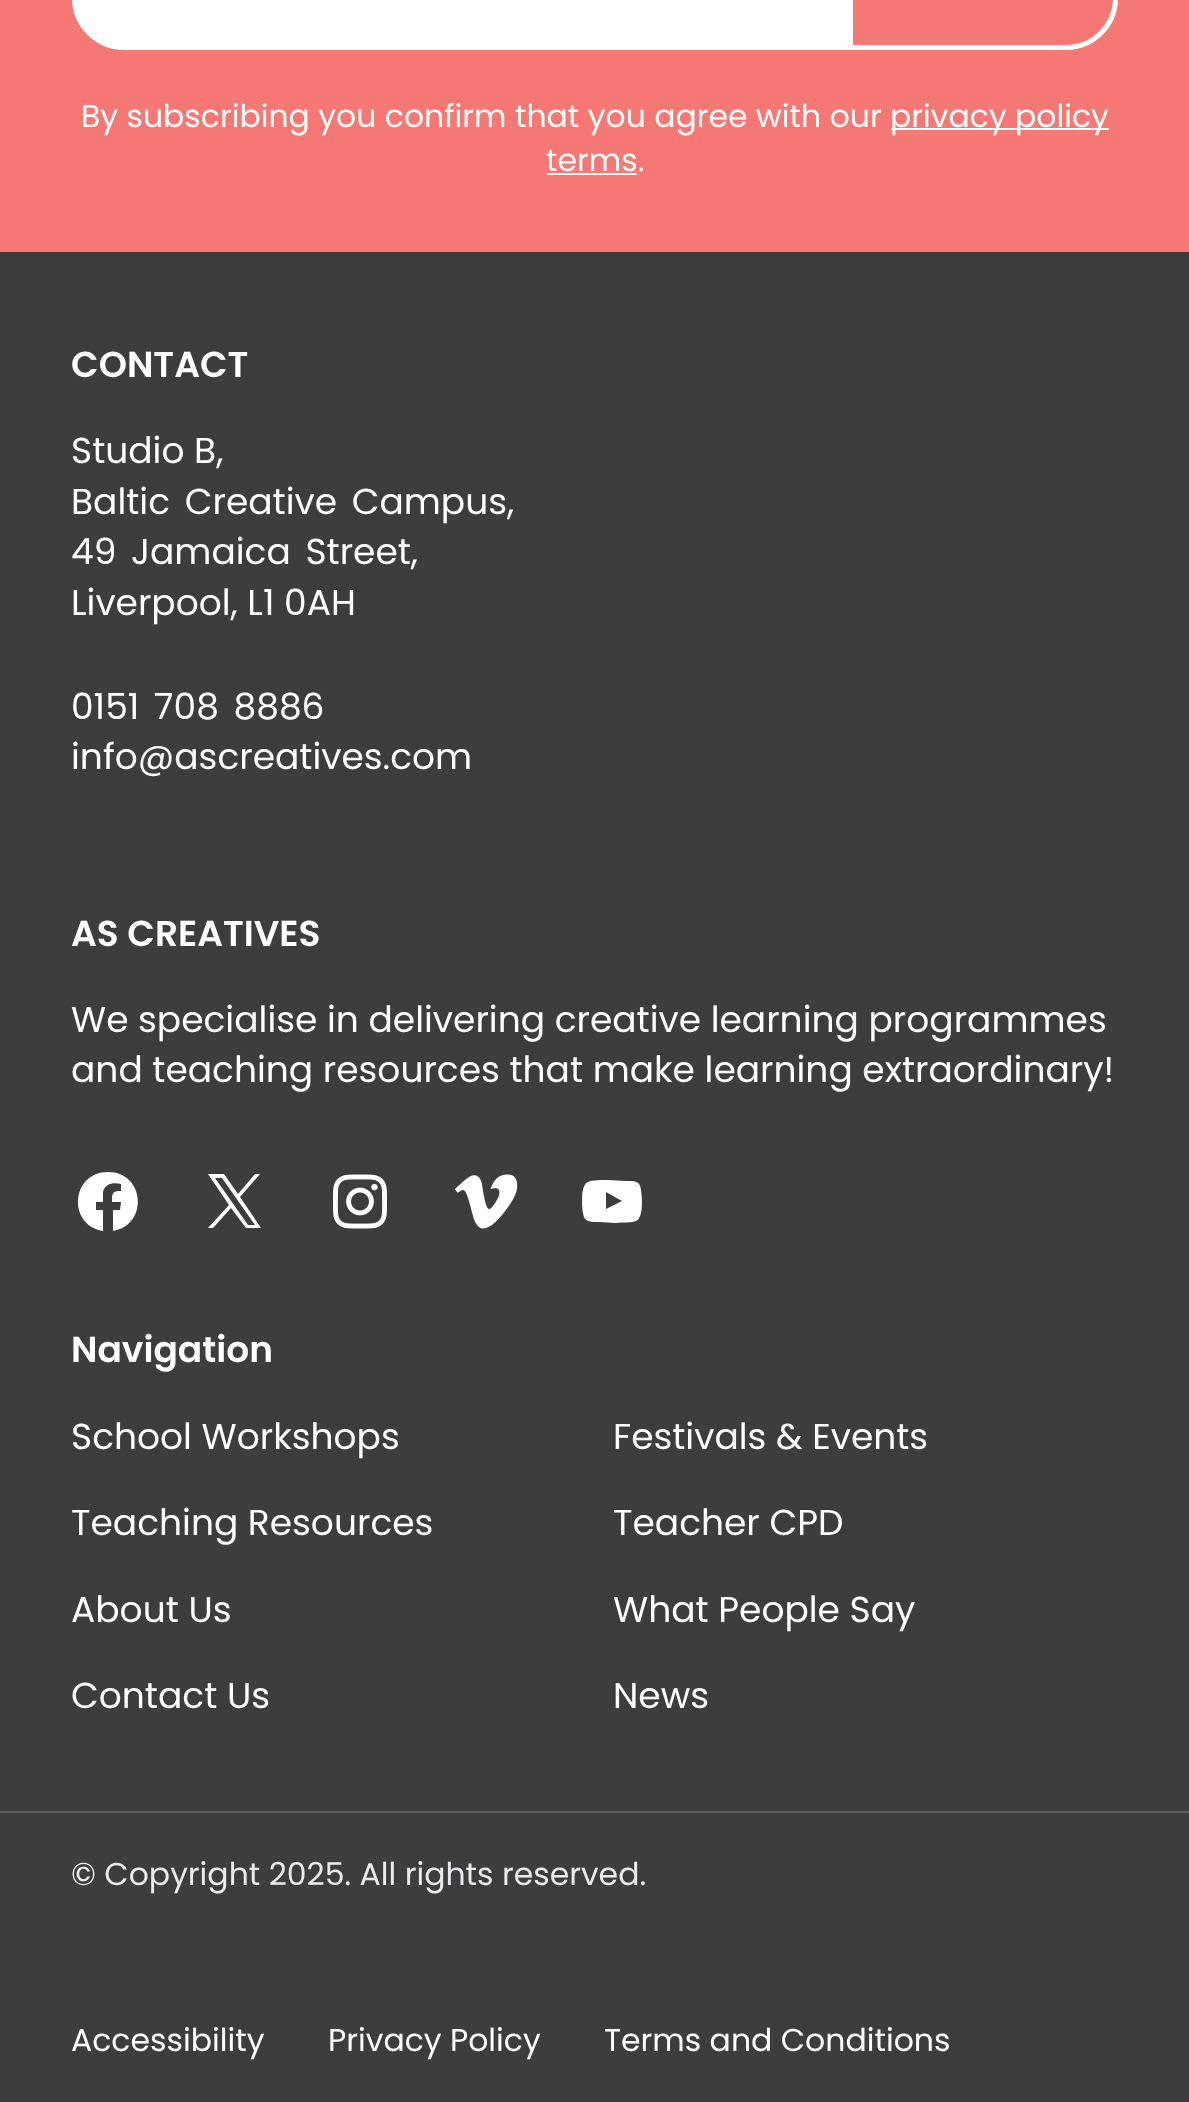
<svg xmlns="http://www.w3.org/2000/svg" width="1189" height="2102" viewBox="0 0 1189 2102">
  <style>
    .t1 { font: 31.5px Poppins; fill: #fff; }
    .t2 { font: 600 36px Poppins; fill: #fff; }
    .t3 { font: 36px Poppins; fill: #fff; }
    .t4 { font: 31.5px Poppins; fill: #eae9ed; }
  </style>
  <rect width="100%" height="100%" fill="#3d3d3d"/>
  <rect x="0" y="0" width="1189" height="252" fill="#f67875"/>
  <path d="M124-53H847V49H124C96 49 73 26 73-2C73-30 96-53 124-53Z" fill="#fff" stroke="#fff" stroke-width="2"/>
  <path d="M850.5-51.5H1066C1093.5-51.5 1115.5-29.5 1115.5-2C1115.5 25.5 1093.5 47.5 1066 47.5H850.5Z" fill="none" stroke="#fff" stroke-width="5"/>
  <text x="81" y="127" class="t1">By subscribing you confirm that you agree with our</text>
  <rect x="891" y="128" width="218" height="2" fill="#fff"/>
  <text x="890" y="127" class="t1">privacy policy</text>
  <text x="546" y="171" class="t1">terms.</text>
  <rect x="547" y="173" width="90" height="2" fill="#fff"/>
  <text x="71" y="377" class="t2">CONTACT</text>
  <text x="71" y="463" class="t3">Studio B,</text>
  <text x="71" y="514" word-spacing="5" class="t3">Baltic Creative Campus,</text>
  <text x="71" y="564" word-spacing="5" class="t3">49 Jamaica Street,</text>
  <text x="71" y="615" class="t3">Liverpool, L1 0AH</text>
  <text x="71" y="719" word-spacing="5" class="t3">0151 708 8886</text>
  <text x="71" y="769" class="t3">info@ascreatives.com</text>
  <text x="71" y="946" class="t2">AS CREATIVES</text>
  <text x="71" y="1032" class="t3">We specialise in delivering creative learning programmes</text>
  <text x="71" y="1082" class="t3">and teaching resources that make learning extraordinary!</text>
  <path d="M108 1172C71 1172 67 1225 103 1231V1210H96V1202H103V1192C105 1183 114 1182 121 1184V1191C112 1191 112 1193 112 1202H121L120 1210H113V1231C149 1225 145 1172 108 1172Z" fill="#fff"/>
  <path d="M240 1197L260 1174H255L238 1194L224 1174H208L229 1205L208 1228H213L231 1208L246 1228H261ZM234 1205L215 1178H222L255 1225H248Z" fill="#fff"/>
  <image x="333" y="1174" width="54" height="55" href="images/1.png"/>
  <image x="454" y="1174" width="64" height="55" href="images/2.png"/>
  <path d="M641 1190C640 1180 634 1181 626 1181L608 1180C602 1180 592 1180 588 1182C580 1185 582 1207 583 1213C584 1223 592 1222 600 1222L616 1223C622 1222 632 1223 636 1221C644 1218 642 1196 641 1190ZM606 1209V1192L622 1201Z" fill="#fff"/>
  <text x="71" y="1362" class="t2">Navigation</text>
  <text x="71" y="1449" class="t3">School Workshops</text>
  <text x="613" y="1449" class="t3">Festivals &amp; Events</text>
  <text x="71" y="1535" class="t3">Teaching Resources</text>
  <text x="613" y="1535" class="t3">Teacher CPD</text>
  <text x="71" y="1622" class="t3">About Us</text>
  <text x="613" y="1622" class="t3">What People Say</text>
  <text x="71" y="1708" class="t3">Contact Us</text>
  <text x="613" y="1708" class="t3">News</text>
  <rect x="0" y="1811" width="1189" height="2" fill="#5d5d5d"/>
  <text x="71" y="1885" class="t4">© Copyright 2025. All rights reserved.</text>
  <text x="71" y="2051" class="t1">Accessibility</text>
  <text x="328" y="2051" class="t1">Privacy Policy</text>
  <text x="604" y="2051" class="t1">Terms and Conditions</text>
</svg>
